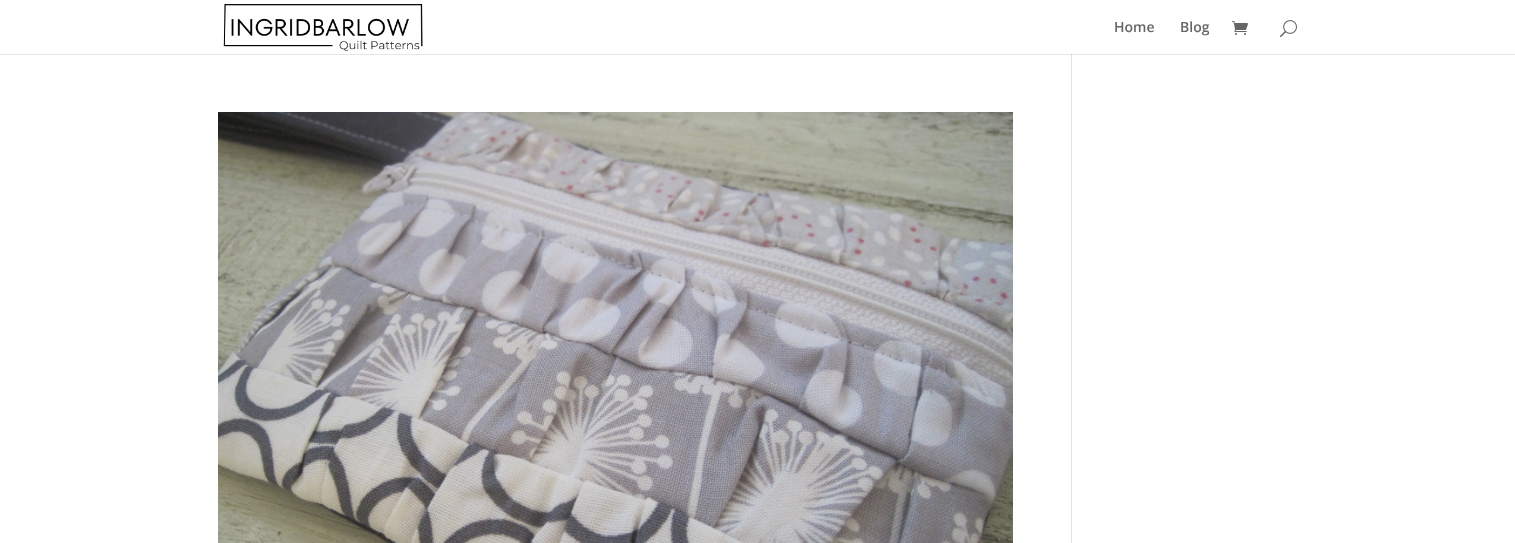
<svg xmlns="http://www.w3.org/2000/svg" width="1515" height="543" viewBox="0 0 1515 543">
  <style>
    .t1 { font: 600 14px Open Sans; fill: #666; }
  </style>
  <rect width="100%" height="100%" fill="#fff"/>
  <rect x="0" y="54" width="1515" height="1" fill="#e6e6e6"/>
  <image x="223" y="4" width="200" height="47" href="images/1.png"/>
  <text x="1114" y="32" class="t1">Home</text>
  <text x="1180" y="32" class="t1">Blog</text>
  <image x="1232" y="21" width="16" height="14" href="images/2.png"/>
  <image x="1280" y="20" width="17" height="18" href="images/3.png"/>
  <image x="218" y="112" width="795" height="431" href="images/4.png"/>
  <rect x="1071" y="54" width="1" height="489" fill="#e2e2e2"/>
  <rect x="1071" y="54" width="1" height="1" fill="#cbcbcb"/>
</svg>
